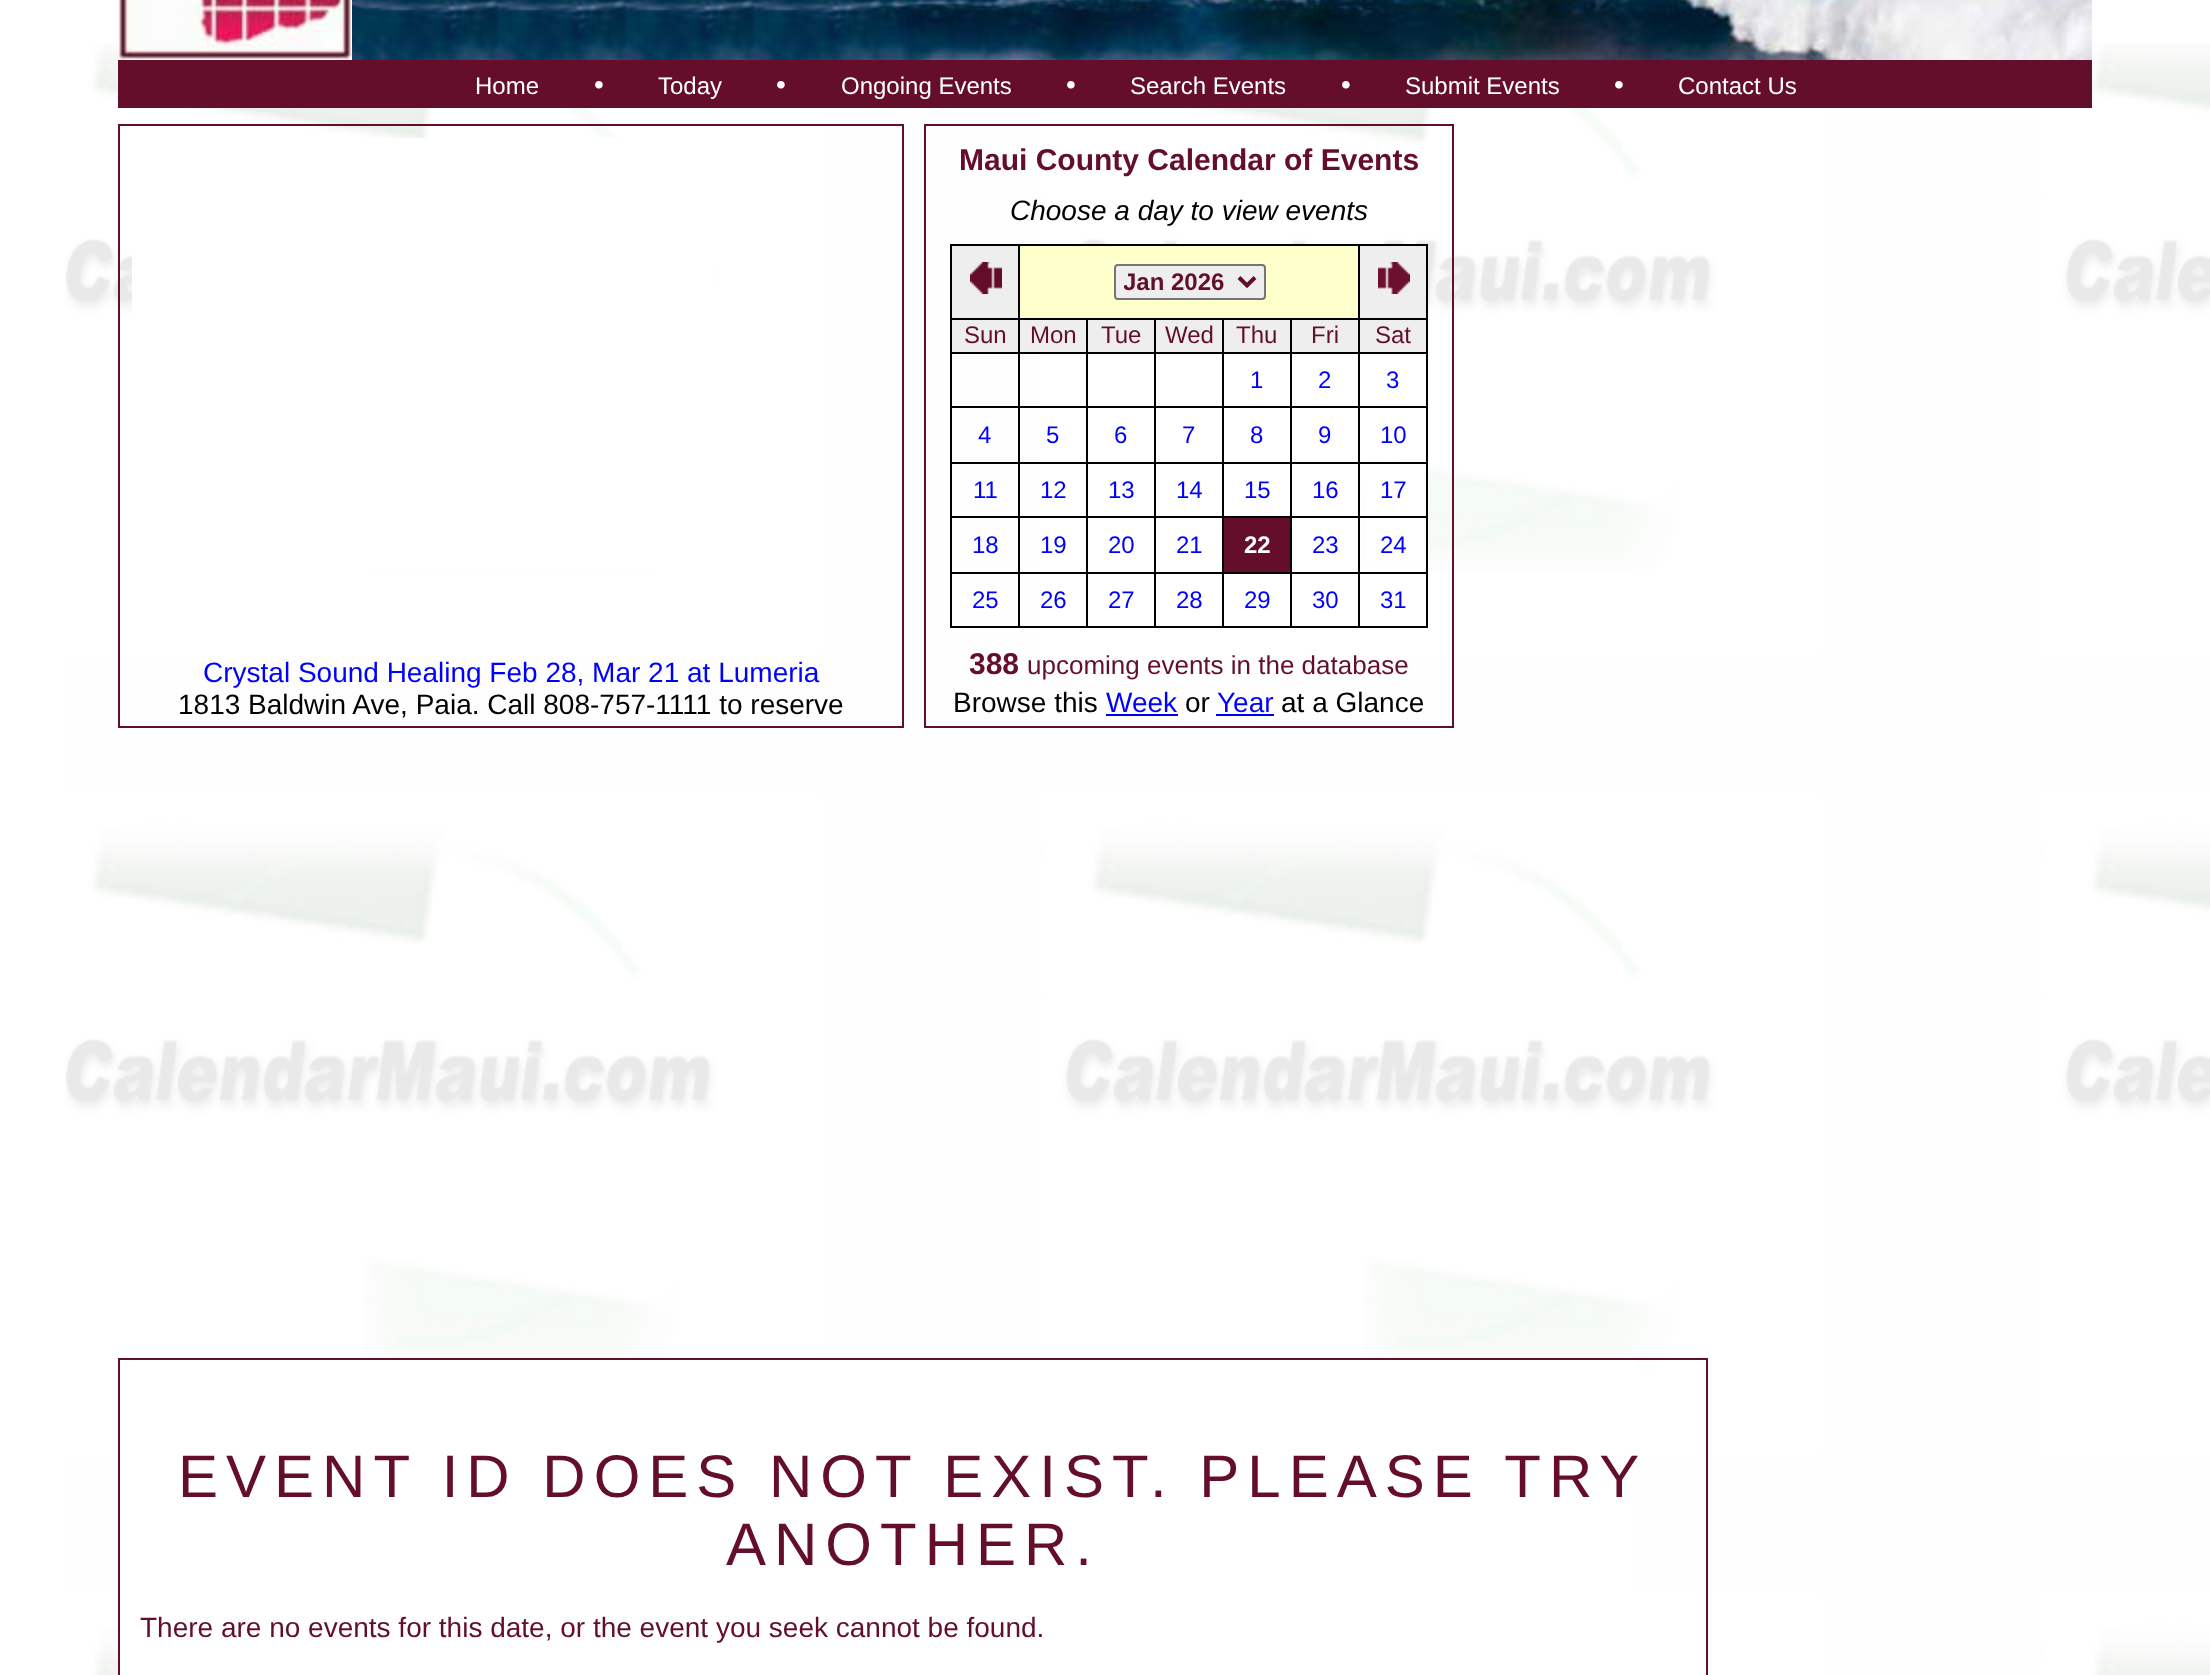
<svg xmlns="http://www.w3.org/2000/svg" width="2210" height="1675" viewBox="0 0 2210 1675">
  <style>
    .t1 { font: 24px Liberation Sans; fill: #fff; }
    .t2 { font: 28px Liberation Sans; fill: #fff; }
    .t3 { font: 28px Liberation Sans; fill: #00f; }
    .t4 { font: 28px Liberation Sans; fill: #000; }
    .t5 { font: bold 30px Liberation Sans; fill: #640e2b; }
    .t6 { font: italic 28px Liberation Sans; fill: #000; }
    .t7 { font: bold 24px Liberation Sans; fill: #640e2b; }
    .t8 { font: 24px Liberation Sans; fill: #640e2b; }
    .t9 { font: 24px Liberation Sans; fill: #00f; }
    .t10 { font: bold 24px Liberation Sans; fill: #fff; }
    .t11 { font: 26px Liberation Sans; fill: #640e2b; }
    .t12 { font: 60px Liberation Sans; letter-spacing: 8px; fill: #640e2b; }
    .t13 { font: 28px Liberation Sans; fill: #640e2b; }
  </style>
  <defs>
    <clipPath id="clip1"><rect x="1124" y="266" width="108" height="32"/></clipPath>
  </defs>
  <rect width="100%" height="100%" fill="#fff"/>
  <image x="65" y="43" width="2145" height="1632" href="images/1.png"/>
  <image x="118" y="0" width="234" height="60" href="images/2.png"/>
  <image x="352" y="0" width="1740" height="60" href="images/3.png"/>
  <rect x="118" y="60" width="1974" height="48" fill="#640e2b"/>
  <text x="475" y="94" class="t1">Home</text>
  <text x="594" y="94" class="t2">•</text>
  <text x="658" y="94" class="t1">Today</text>
  <text x="776" y="94" class="t2">•</text>
  <text x="841" y="94" class="t1">Ongoing Events</text>
  <text x="1066" y="94" class="t2">•</text>
  <text x="1130" y="94" class="t1">Search Events</text>
  <text x="1341" y="94" class="t2">•</text>
  <text x="1405" y="94" class="t1">Submit Events</text>
  <text x="1614" y="94" class="t2">•</text>
  <text x="1678" y="94" class="t1">Contact Us</text>
  <rect x="119" y="125" width="784" height="602" fill="none" stroke="#640e2b" stroke-width="2"/>
  <rect x="132" y="138" width="584" height="431" fill="#fffffffc"/>
  <text x="203" y="682" class="t3">Crystal Sound Healing Feb 28, Mar 21 at Lumeria</text>
  <text x="178" y="714" class="t4">1813 Baldwin Ave, Paia. Call 808-757-1111 to reserve</text>
  <rect x="925" y="125" width="528" height="602" fill="none" stroke="#640e2b" stroke-width="2"/>
  <text x="959" y="170" class="t5">Maui County Calendar of Events</text>
  <text x="1010" y="220" class="t6">Choose a day to view events</text>
  <rect x="950" y="244" width="478" height="2" fill="#000"/>
  <rect x="950" y="244" width="2" height="384" fill="#000"/>
  <rect x="952" y="246" width="66" height="72" fill="#eee"/>
  <rect x="1426" y="244" width="2" height="384" fill="#000"/>
  <rect x="1358" y="626" width="70" height="2" fill="#000"/>
  <rect x="1358" y="572" width="2" height="56" fill="#000"/>
  <rect x="1358" y="572" width="70" height="2" fill="#000"/>
  <rect x="1358" y="516" width="2" height="58" fill="#000"/>
  <rect x="1358" y="516" width="70" height="2" fill="#000"/>
  <rect x="1358" y="462" width="2" height="56" fill="#000"/>
  <rect x="1358" y="462" width="70" height="2" fill="#000"/>
  <rect x="1358" y="406" width="2" height="58" fill="#000"/>
  <rect x="1358" y="406" width="70" height="2" fill="#000"/>
  <rect x="1358" y="352" width="2" height="56" fill="#000"/>
  <rect x="1358" y="352" width="70" height="2" fill="#000"/>
  <rect x="1358" y="318" width="2" height="36" fill="#000"/>
  <rect x="1358" y="318" width="70" height="2" fill="#000"/>
  <rect x="1358" y="244" width="2" height="76" fill="#000"/>
  <rect x="1290" y="626" width="70" height="2" fill="#000"/>
  <rect x="1290" y="572" width="2" height="56" fill="#000"/>
  <rect x="1290" y="572" width="70" height="2" fill="#000"/>
  <rect x="1290" y="516" width="2" height="58" fill="#000"/>
  <rect x="1290" y="516" width="70" height="2" fill="#000"/>
  <rect x="1290" y="462" width="2" height="56" fill="#000"/>
  <rect x="1290" y="462" width="70" height="2" fill="#000"/>
  <rect x="1290" y="406" width="2" height="58" fill="#000"/>
  <rect x="1290" y="406" width="70" height="2" fill="#000"/>
  <rect x="1290" y="352" width="2" height="56" fill="#000"/>
  <rect x="1290" y="352" width="70" height="2" fill="#000"/>
  <rect x="1290" y="318" width="2" height="36" fill="#000"/>
  <rect x="1222" y="626" width="70" height="2" fill="#000"/>
  <rect x="1222" y="572" width="2" height="56" fill="#000"/>
  <rect x="1222" y="572" width="70" height="2" fill="#000"/>
  <rect x="1222" y="516" width="2" height="58" fill="#000"/>
  <rect x="1222" y="516" width="70" height="2" fill="#000"/>
  <rect x="1222" y="462" width="2" height="56" fill="#000"/>
  <rect x="1222" y="462" width="70" height="2" fill="#000"/>
  <rect x="1222" y="406" width="2" height="58" fill="#000"/>
  <rect x="1222" y="406" width="70" height="2" fill="#000"/>
  <rect x="1222" y="352" width="2" height="56" fill="#000"/>
  <rect x="1222" y="352" width="70" height="2" fill="#000"/>
  <rect x="1222" y="318" width="2" height="36" fill="#000"/>
  <rect x="1154" y="626" width="70" height="2" fill="#000"/>
  <rect x="1154" y="572" width="2" height="56" fill="#000"/>
  <rect x="1154" y="572" width="70" height="2" fill="#000"/>
  <rect x="1154" y="516" width="2" height="58" fill="#000"/>
  <rect x="1154" y="516" width="70" height="2" fill="#000"/>
  <rect x="1154" y="462" width="2" height="56" fill="#000"/>
  <rect x="1154" y="462" width="70" height="2" fill="#000"/>
  <rect x="1154" y="406" width="2" height="58" fill="#000"/>
  <rect x="1154" y="406" width="70" height="2" fill="#000"/>
  <rect x="1154" y="352" width="2" height="56" fill="#000"/>
  <rect x="1154" y="352" width="70" height="2" fill="#000"/>
  <rect x="1154" y="318" width="2" height="36" fill="#000"/>
  <rect x="1086" y="626" width="70" height="2" fill="#000"/>
  <rect x="1086" y="572" width="2" height="56" fill="#000"/>
  <rect x="1086" y="572" width="70" height="2" fill="#000"/>
  <rect x="1086" y="516" width="2" height="58" fill="#000"/>
  <rect x="1086" y="516" width="70" height="2" fill="#000"/>
  <rect x="1086" y="462" width="2" height="56" fill="#000"/>
  <rect x="1086" y="462" width="70" height="2" fill="#000"/>
  <rect x="1086" y="406" width="2" height="58" fill="#000"/>
  <rect x="1086" y="406" width="70" height="2" fill="#000"/>
  <rect x="1086" y="352" width="2" height="56" fill="#000"/>
  <rect x="1086" y="352" width="70" height="2" fill="#000"/>
  <rect x="1086" y="318" width="2" height="36" fill="#000"/>
  <rect x="1018" y="626" width="70" height="2" fill="#000"/>
  <rect x="1018" y="572" width="2" height="56" fill="#000"/>
  <rect x="1018" y="572" width="70" height="2" fill="#000"/>
  <rect x="1018" y="516" width="2" height="58" fill="#000"/>
  <rect x="1018" y="516" width="70" height="2" fill="#000"/>
  <rect x="1018" y="462" width="2" height="56" fill="#000"/>
  <rect x="1018" y="462" width="70" height="2" fill="#000"/>
  <rect x="1018" y="406" width="2" height="58" fill="#000"/>
  <rect x="1018" y="406" width="70" height="2" fill="#000"/>
  <rect x="1018" y="352" width="2" height="56" fill="#000"/>
  <rect x="1018" y="352" width="70" height="2" fill="#000"/>
  <rect x="1018" y="318" width="2" height="36" fill="#000"/>
  <rect x="1018" y="318" width="342" height="2" fill="#000"/>
  <rect x="1018" y="244" width="2" height="76" fill="#000"/>
  <rect x="950" y="318" width="70" height="2" fill="#000"/>
  <image x="970" y="262" width="32" height="32" href="images/4.png"/>
  <rect x="1020" y="246" width="338" height="72" fill="#ffc"/>
  <rect x="1115" y="265" width="150" height="34" rx="3" fill="#eee" stroke="#767676" stroke-width="2"/>
  <path d="M1239 277.5L1247 285.5L1255 277.5" fill="none" stroke="#640e2b" stroke-width="4"/>
  <g clip-path="url(#clip1)">
    <text x="1123" y="290" class="t7">Jan 2026</text>
  </g>
  <rect x="1360" y="246" width="66" height="72" fill="#eee"/>
  <image x="1378" y="262" width="32" height="32" href="images/5.png"/>
  <rect x="952" y="320" width="66" height="32" fill="#eee"/>
  <rect x="950" y="352" width="70" height="2" fill="#000"/>
  <text x="964" y="343" class="t8">Sun</text>
  <rect x="1020" y="320" width="66" height="32" fill="#eee"/>
  <text x="1030" y="343" class="t8">Mon</text>
  <rect x="1088" y="320" width="66" height="32" fill="#eee"/>
  <text x="1101" y="343" class="t8">Tue</text>
  <rect x="1156" y="320" width="66" height="32" fill="#eee"/>
  <text x="1165" y="343" class="t8">Wed</text>
  <rect x="1224" y="320" width="66" height="32" fill="#eee"/>
  <text x="1236" y="343" class="t8">Thu</text>
  <rect x="1292" y="320" width="66" height="32" fill="#eee"/>
  <text x="1311" y="343" class="t8">Fri</text>
  <rect x="1360" y="320" width="66" height="32" fill="#eee"/>
  <text x="1375" y="343" class="t8">Sat</text>
  <rect x="950" y="406" width="70" height="2" fill="#000"/>
  <text x="1250" y="388" class="t9">1</text>
  <text x="1318" y="388" class="t9">2</text>
  <text x="1386" y="388" class="t9">3</text>
  <rect x="950" y="462" width="70" height="2" fill="#000"/>
  <text x="978" y="443" class="t9">4</text>
  <text x="1046" y="443" class="t9">5</text>
  <text x="1114" y="443" class="t9">6</text>
  <text x="1182" y="443" class="t9">7</text>
  <text x="1250" y="443" class="t9">8</text>
  <text x="1318" y="443" class="t9">9</text>
  <rect x="1373" y="461" width="28" height="1" fill="#fff"/>
  <text x="1380" y="443" class="t9">10</text>
  <rect x="950" y="516" width="70" height="2" fill="#000"/>
  <text x="973" y="498" class="t9">11</text>
  <text x="1040" y="498" class="t9">12</text>
  <text x="1108" y="498" class="t9">13</text>
  <text x="1176" y="498" class="t9">14</text>
  <text x="1244" y="498" class="t9">15</text>
  <text x="1312" y="498" class="t9">16</text>
  <rect x="1365" y="464" width="61" height="52" fill="#fff"/>
  <text x="1380" y="498" class="t9">17</text>
  <rect x="950" y="572" width="70" height="2" fill="#000"/>
  <text x="972" y="553" class="t9">18</text>
  <text x="1040" y="553" class="t9">19</text>
  <text x="1108" y="553" class="t9">20</text>
  <text x="1176" y="553" class="t9">21</text>
  <rect x="1224" y="518" width="66" height="54" fill="#640e2b"/>
  <text x="1244" y="553" class="t10">22</text>
  <text x="1312" y="553" class="t9">23</text>
  <rect x="1365" y="518" width="61" height="49" fill="#fff"/>
  <text x="1380" y="553" class="t9">24</text>
  <rect x="950" y="626" width="70" height="2" fill="#000"/>
  <text x="972" y="608" class="t9">25</text>
  <text x="1040" y="608" class="t9">26</text>
  <text x="1108" y="608" class="t9">27</text>
  <text x="1176" y="608" class="t9">28</text>
  <text x="1244" y="608" class="t9">29</text>
  <text x="1312" y="608" class="t9">30</text>
  <text x="1380" y="608" class="t9">31</text>
  <text x="969" y="674" class="t5">388</text>
  <text x="1027" y="674" class="t11">upcoming events in the database</text>
  <text x="953" y="712" class="t4">Browse this</text>
  <text x="1106" y="712" class="t3">Week</text>
  <rect x="1106" y="714" width="72" height="2" fill="#00f"/>
  <text x="1185" y="712" class="t4">or</text>
  <text x="1217" y="712" class="t3">Year</text>
  <rect x="1216" y="714" width="58" height="2" fill="#00f"/>
  <text x="1281" y="712" class="t4">at a Glance</text>
  <rect x="120" y="1360" width="1517" height="315" fill="#fff"/>
  <rect x="119" y="1359" width="1588" height="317" fill="none" stroke="#640e2b" stroke-width="2"/>
  <text x="178" y="1497" class="t12">EVENT ID DOES NOT EXIST. PLEASE TRY</text>
  <text x="726" y="1565" class="t12">ANOTHER.</text>
  <text x="140" y="1637" class="t13">There are no events for this date, or the event you seek cannot be found.</text>
</svg>
